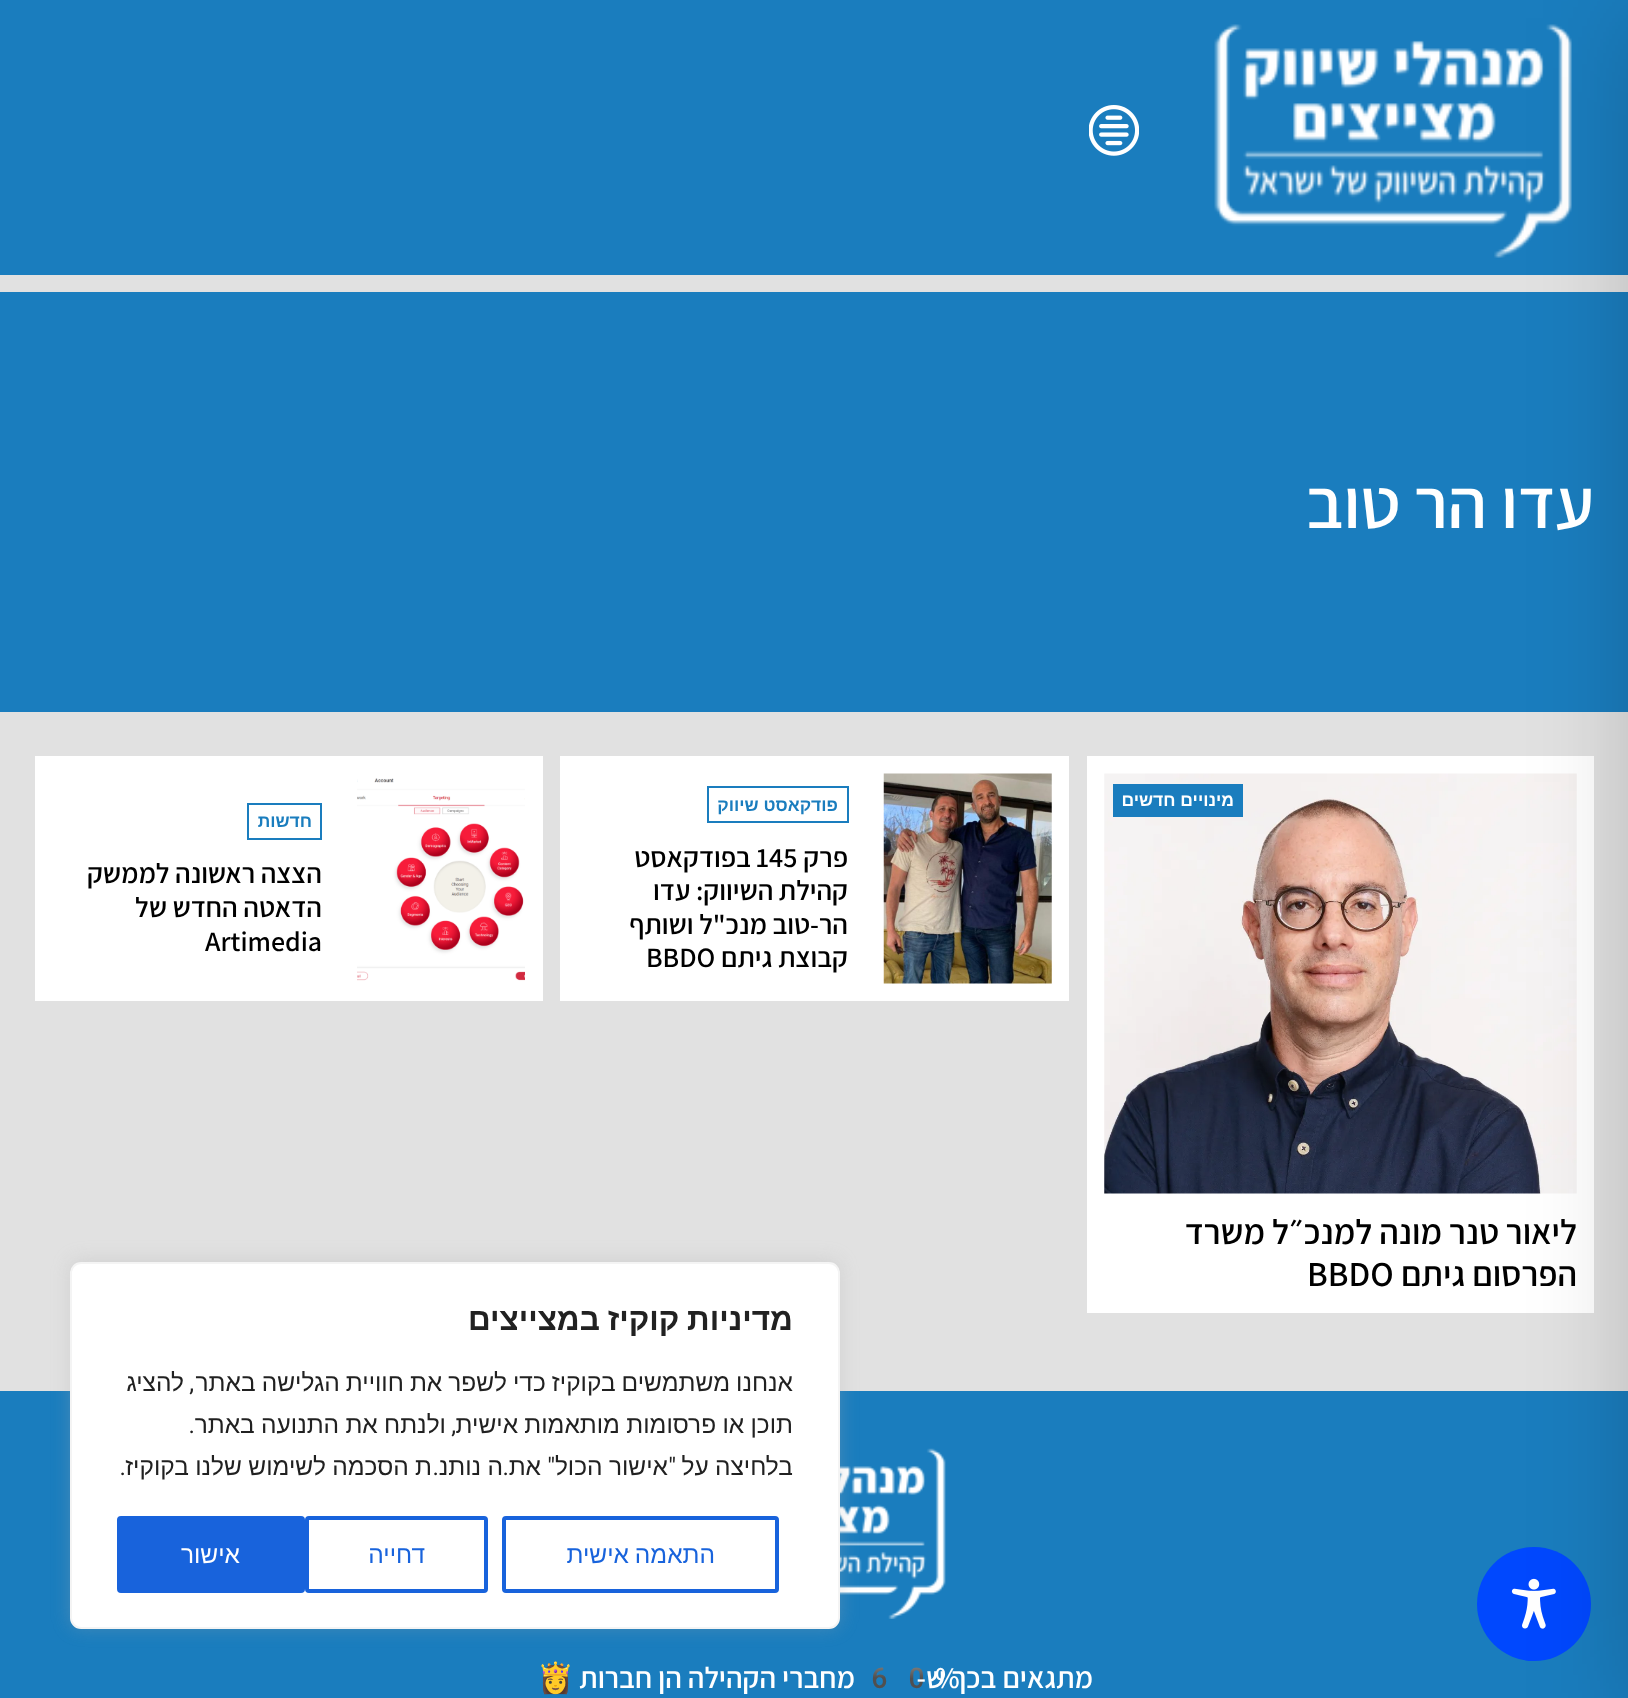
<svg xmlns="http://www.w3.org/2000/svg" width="1628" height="1698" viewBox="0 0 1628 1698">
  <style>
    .t1 { font: 600 70px Assistant; direction: rtl; fill: #fff; }
    .t2 { font: bold 17.5px Liberation Sans; direction: rtl; fill: #fff; }
    .t3 { font: 600 35px Assistant; direction: rtl; fill: #000; }
    .t4 { font: 600 35px Assistant; fill: #000; }
    .t5 { font: bold 17.5px Liberation Sans; direction: rtl; fill: #1a7dbe; }
    .t6 { font: 600 28px Assistant; direction: rtl; fill: #000; }
    .t7 { font: 600 28px Assistant; fill: #000; }
    .t8 { font: bold 31.5px Liberation Sans; direction: rtl; fill: #212121; }
    .t9 { font: 24.5px Liberation Sans; direction: rtl; fill: #212121; }
    .t10 { font: 24.5px Roboto; direction: rtl; fill: #212121; }
    .t11 { font: 24.5px Liberation Sans; direction: rtl; fill: #1863dc; }
    .t12 { font: 24.5px Liberation Sans; direction: rtl; fill: #fff; }
    .t13 { font: 600 29.75px Assistant; fill: #fff; }
    .t14 { font: bold 29.75px Noto Color Emoji; fill: #fff; }
    .t15 { font: 600 29.75px Assistant; direction: rtl; fill: #fff; }
    .t16 { font: bold 29.75px Noto Color Emoji; direction: rtl; fill: #fff; }
  </style>
  <rect width="100%" height="100%" fill="#e1e1e1"/>
  <rect x="0" y="0" width="1628" height="275" fill="#1a7dbe"/>
  <image x="1214" y="24" width="358" height="234" href="images/1.png"/>
  <image x="1089" y="105" width="50" height="51" href="images/2.png"/>
  <rect x="0" y="292" width="1628" height="420" fill="#1a7dbe"/>
  <rect x="1087" y="756" width="507" height="557" fill="#fff"/>
  <image x="1104" y="773" width="473" height="421" href="images/3.png"/>
  <rect x="0" y="1391" width="1628" height="307" fill="#1a7dbe"/>
  <circle cx="1534" cy="1604" r="57" fill="#0048fe"/>
  <image x="1511" y="1578" width="45" height="51" href="images/6.png"/>
  <rect x="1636" y="18" width="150" height="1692" fill="#00000033" filter="blur(52.5px)"/>
  <text x="1594" y="528" class="t1">עדו הר טוב</text>
  <rect x="1113" y="784" width="130" height="33" fill="#1a7dbe"/>
  <text x="1234" y="806" class="t2">מינויים חדשים</text>
  <text x="1577" y="1244" class="t3">ליאור טנר מונה למנכ״ל משרד</text>
  <text x="1577" y="1286" class="t3">הפרסום גיתם</text>
  <text x="1307" y="1286" class="t4">BBDO</text>
  <rect x="560" y="756" width="509" height="245" fill="#fff"/>
  <image x="883" y="773" width="169" height="211" href="images/4.png"/>
  <rect x="708" y="787" width="140" height="35" fill="none" stroke="#1a7dbe" stroke-width="2"/>
  <text x="838" y="811" class="t5">פודקאסט שיווק</text>
  <text x="848" y="867" class="t6">פרק</text>
  <text x="756" y="867" class="t7">145</text>
  <text x="751" y="867" class="t6">בפודקאסט</text>
  <text x="848" y="900" class="t6">קהילת השיווק: עדו</text>
  <text x="848" y="934" class="t6">הר-טוב מנכ"ל ושותף</text>
  <text x="848" y="967" class="t6">קבוצת גיתם</text>
  <text x="646" y="967" class="t7">BBDO</text>
  <rect x="35" y="756" width="508" height="245" fill="#fff"/>
  <image x="357" y="778" width="168" height="203" href="images/5.png"/>
  <rect x="248" y="804" width="73" height="35" fill="none" stroke="#1a7dbe" stroke-width="2"/>
  <text x="312" y="827" class="t5">חדשות</text>
  <text x="322" y="883" class="t6">הצצה ראשונה לממשק</text>
  <text x="322" y="917" class="t6">הדאטה החדש של</text>
  <text x="205" y="951" class="t7">Artimedia</text>
  <image x="840" y="1448" width="106" height="171" href="images/7.png"/>
  <rect x="70" y="1260" width="770" height="368" rx="11" fill="#acabab4d" filter="blur(9px)"/>
  <rect x="71" y="1263" width="768" height="365" rx="10" fill="#fff" stroke="#f4f4f4" stroke-width="2"/>
  <text x="793" y="1330" word-spacing="-1" class="t8">מדיניות קוקיז במצייצים</text>
  <text x="793" y="1391" word-spacing="-0.75" class="t9">אנחנו משתמשים בקוקיז כדי לשפר את חוויית הגלישה באתר</text>
  <text x="194" y="1391" class="t10">,</text>
  <text x="184" y="1391" class="t9">להציג</text>
  <text x="793" y="1433" word-spacing="-0.5" class="t9">תוכן או פרסומות מותאמות אישית</text>
  <text x="456" y="1433" class="t10">,</text>
  <text x="446" y="1433" word-spacing="-0.5" class="t9">ולנתח את התנועה באתר</text>
  <text x="195" y="1433" class="t10">.</text>
  <text x="793" y="1475" word-spacing="-0.5" class="t9">בלחיצה על</text>
  <text x="676" y="1475" class="t10">"</text>
  <text x="668" y="1475" word-spacing="-0.5" class="t9">אישור הכול</text>
  <text x="555" y="1475" class="t10">"</text>
  <text x="541" y="1475" class="t9">את</text>
  <text x="509" y="1475" class="t10">.</text>
  <text x="503" y="1475" word-spacing="-0.5" class="t9">ה נותנ</text>
  <text x="439" y="1475" class="t10">.</text>
  <text x="432" y="1475" word-spacing="-0.5" class="t9">ת הסכמה לשימוש שלנו בקוקיז</text>
  <text x="126" y="1475" class="t10">.</text>
  <rect x="504" y="1518" width="273" height="73" rx="2" fill="none" stroke="#1863dc" stroke-width="4"/>
  <text x="715" y="1563" word-spacing="-1" class="t11">התאמה אישית</text>
  <rect x="307" y="1518" width="179" height="73" rx="2" fill="none" stroke="#1863dc" stroke-width="4"/>
  <text x="425" y="1563" class="t11">דחייה</text>
  <rect x="119" y="1518" width="184" height="73" rx="2" fill="#1863dc" stroke="#1863dc" stroke-width="4"/>
  <text x="240" y="1563" class="t12">אישור</text>
  <text x="935" y="1688" class="t13">%</text>
  <text x="861" y="1688" class="t14">60</text>
  <text x="855" y="1688" class="t15">מחברי הקהילה הן חברות</text>
  <text x="574" y="1688" class="t16">👸</text>
  <text x="1093" y="1688" class="t15">מתגאים בכך ש-</text>
</svg>
